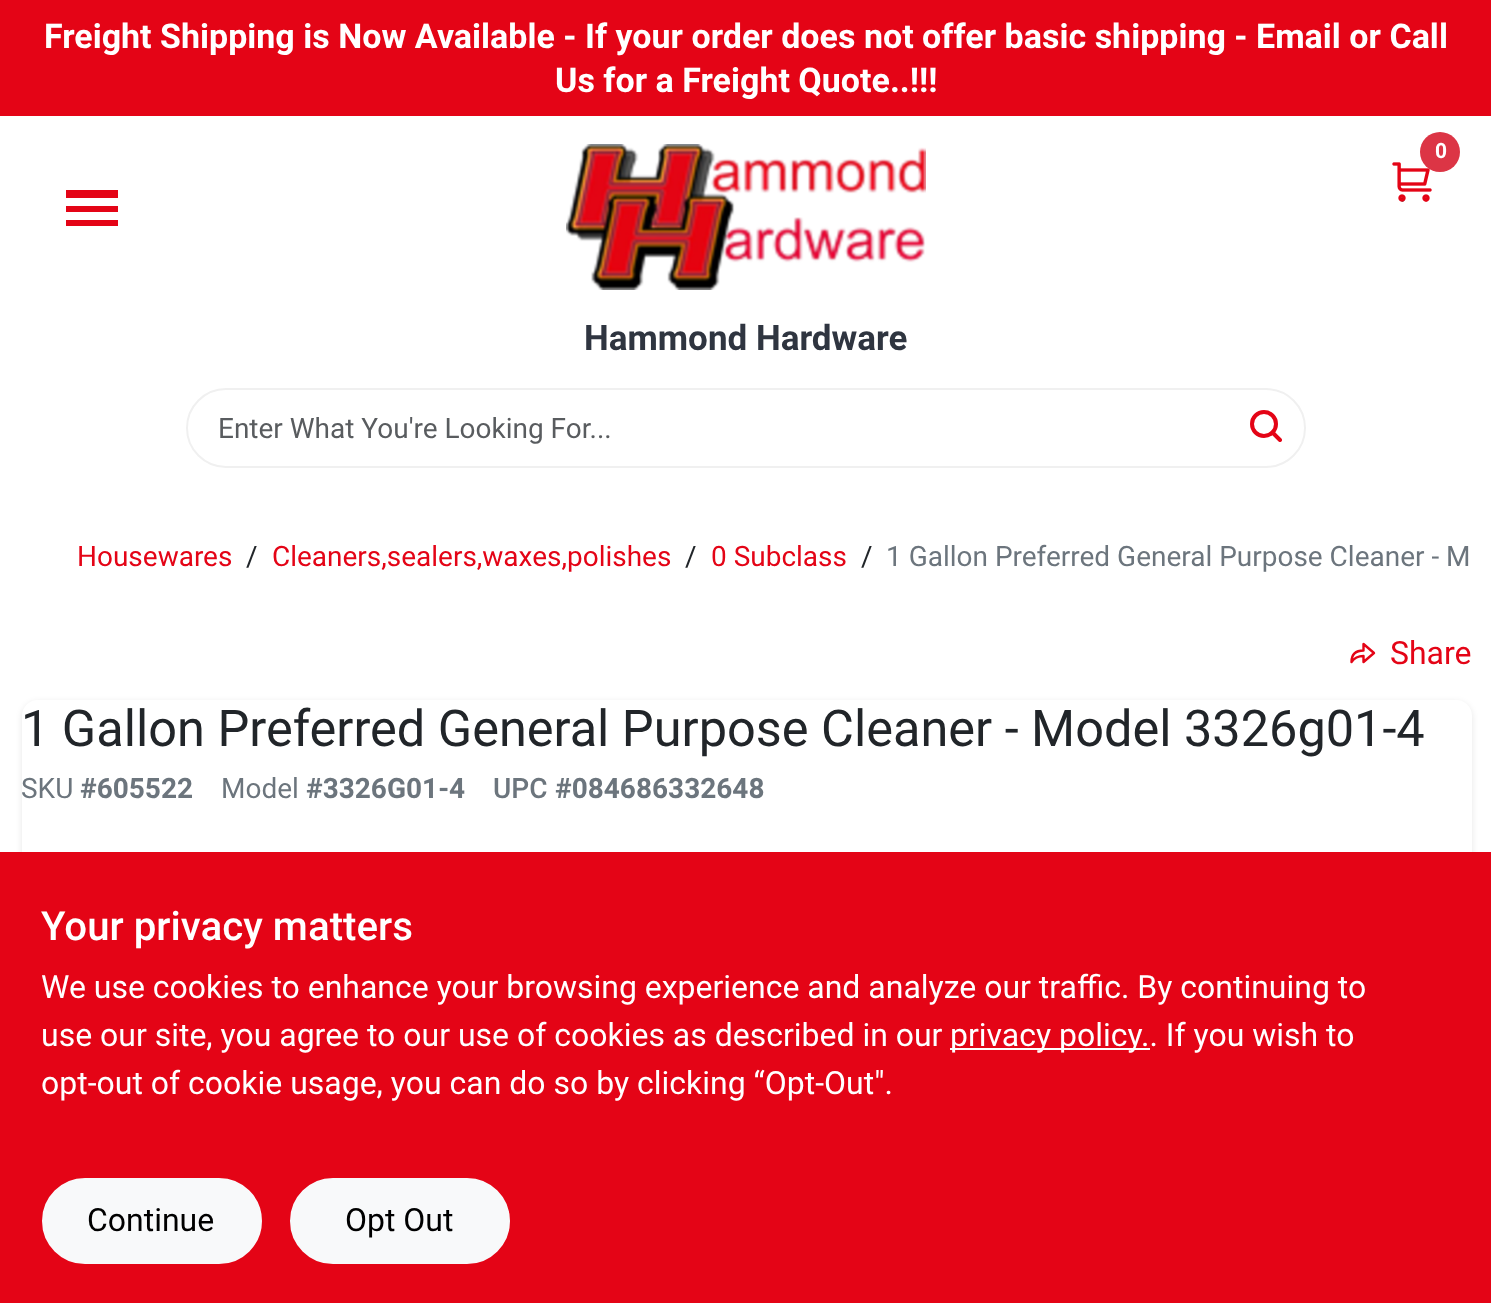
<svg xmlns="http://www.w3.org/2000/svg" width="1491" height="1303" viewBox="0 0 1491 1303">
  <style>
    .t1 { font: bold 34px Roboto; fill: #fff; }
    .t2 { font: bold 21px Roboto; letter-spacing: -2px; fill: #fff; }
    .t3 { font: bold 35px Roboto; fill: #2f3540; }
    .t4 { font: 28px Roboto; fill: #595c5f; }
    .t5 { font: 28px Roboto; fill: #e40416; }
    .t6 { font: 28px Roboto; fill: #212529; }
    .t7 { font: 28px Roboto; fill: #6c757d; }
    .t8 { font: 32px Roboto; fill: #e40416; }
    .t9 { font: 50.5px Roboto; fill: #212529; }
    .t10 { font: bold 28px Roboto; fill: #6c757d; }
    .t11 { font: 500 28px Roboto; fill: #6c757d; }
    .t12 { font: 500 40.25px Roboto; fill: #fff; }
    .t13 { font: 32px Roboto; fill: #fff; }
    .t14 { font: 32px Roboto; fill: #000; }
  </style>
  <defs>
    <clipPath id="clip1"><path d="M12 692H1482V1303H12ZM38 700H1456C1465 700 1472 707 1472 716V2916C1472 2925 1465 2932 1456 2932H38C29 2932 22 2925 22 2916V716C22 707 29 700 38 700Z" clip-rule="evenodd"/></clipPath>
  </defs>
  <rect width="100%" height="100%" fill="#fff"/>
  <rect x="0" y="0" width="1491" height="116" fill="#e40416"/>
  <text x="44" y="48" class="t1">Freight Shipping is Now Available - If your order does not offer basic shipping - Email or Call</text>
  <text x="555" y="92" class="t1">Us for a Freight Quote..!!!</text>
  <image x="1392" y="162" width="40" height="40" href="images/1.png"/>
  <circle cx="1440" cy="152" r="20" fill="#dc3545"/>
  <text x="1435" y="158" class="t2">0</text>
  <rect x="66" y="190" width="52" height="8" fill="#e40416"/>
  <rect x="66" y="206" width="52" height="6" fill="#e40416"/>
  <rect x="66" y="220" width="52" height="6" fill="#e40416"/>
  <image x="566" y="144" width="360" height="146" href="images/2.png"/>
  <text x="584" y="350" class="t3">Hammond Hardware</text>
  <rect x="187" y="389" width="1118" height="78" rx="39" fill="none" stroke="#f0f0f0" stroke-width="2"/>
  <text x="218" y="438" class="t4">Enter What You're Looking For...</text>
  <image x="1250" y="410" width="32" height="32" href="images/3.png"/>
  <text x="77" y="566" class="t5">Housewares</text>
  <text x="246" y="566" class="t6">/</text>
  <text x="272" y="566" class="t5">Cleaners,sealers,waxes,polishes</text>
  <text x="685" y="566" class="t6">/</text>
  <text x="711" y="566" class="t5">0 Subclass</text>
  <text x="861" y="566" class="t6">/</text>
  <text x="886" y="566" class="t7">1 Gallon Preferred General Purpose Cleaner - M</text>
  <path d="M1374 653L1363.5 644V650.5C1358 650.5 1351.5 652.5 1351.5 662C1354.5 657.5 1359 656 1363.5 656V662Z" fill="none" stroke="#e40416" stroke-width="2.4" stroke-linecap="round" stroke-linejoin="round"/>
  <text x="1390" y="664" class="t8">Share</text>
  <g clip-path="url(#clip1)">
    <rect x="22" y="702" width="1450" height="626" rx="16" fill="#0000001a" filter="blur(3px)"/>
  </g>
  <text x="21" y="746" class="t9">1 Gallon Preferred General Purpose Cleaner - Model 3326g01-4</text>
  <text x="21" y="798" class="t7">SKU</text>
  <text x="80" y="798" class="t10">#605522</text>
  <text x="221" y="798" class="t7">Model</text>
  <text x="306" y="798" class="t10">#3326G01-4</text>
  <text x="493" y="798" class="t11">UPC</text>
  <text x="555" y="798" class="t10">#084686332648</text>
  <rect x="0" y="852" width="1491" height="451" fill="#e40416"/>
  <text x="41" y="940" class="t12">Your privacy matters</text>
  <text x="41" y="998" class="t13">We use cookies to enhance your browsing experience and analyze our traffic. By continuing to</text>
  <text x="41" y="1046" class="t13">use our site, you agree to our use of cookies as described in our</text>
  <rect x="950" y="1048" width="200" height="2" fill="#fff"/>
  <text x="950" y="1046" class="t13">privacy policy.. If you wish to</text>
  <text x="41" y="1094" class="t13">opt-out of cookie usage, you can do so by clicking “Opt-Out".</text>
  <rect x="43" y="1179" width="218" height="84" rx="42" fill="#f8f9fa" stroke="#f8f9fa" stroke-width="2"/>
  <text x="87" y="1231" class="t14">Continue</text>
  <rect x="291" y="1179" width="218" height="84" rx="42" fill="#f8f9fa" stroke="#f8f9fa" stroke-width="2"/>
  <text x="345" y="1231" class="t14">Opt Out</text>
</svg>
